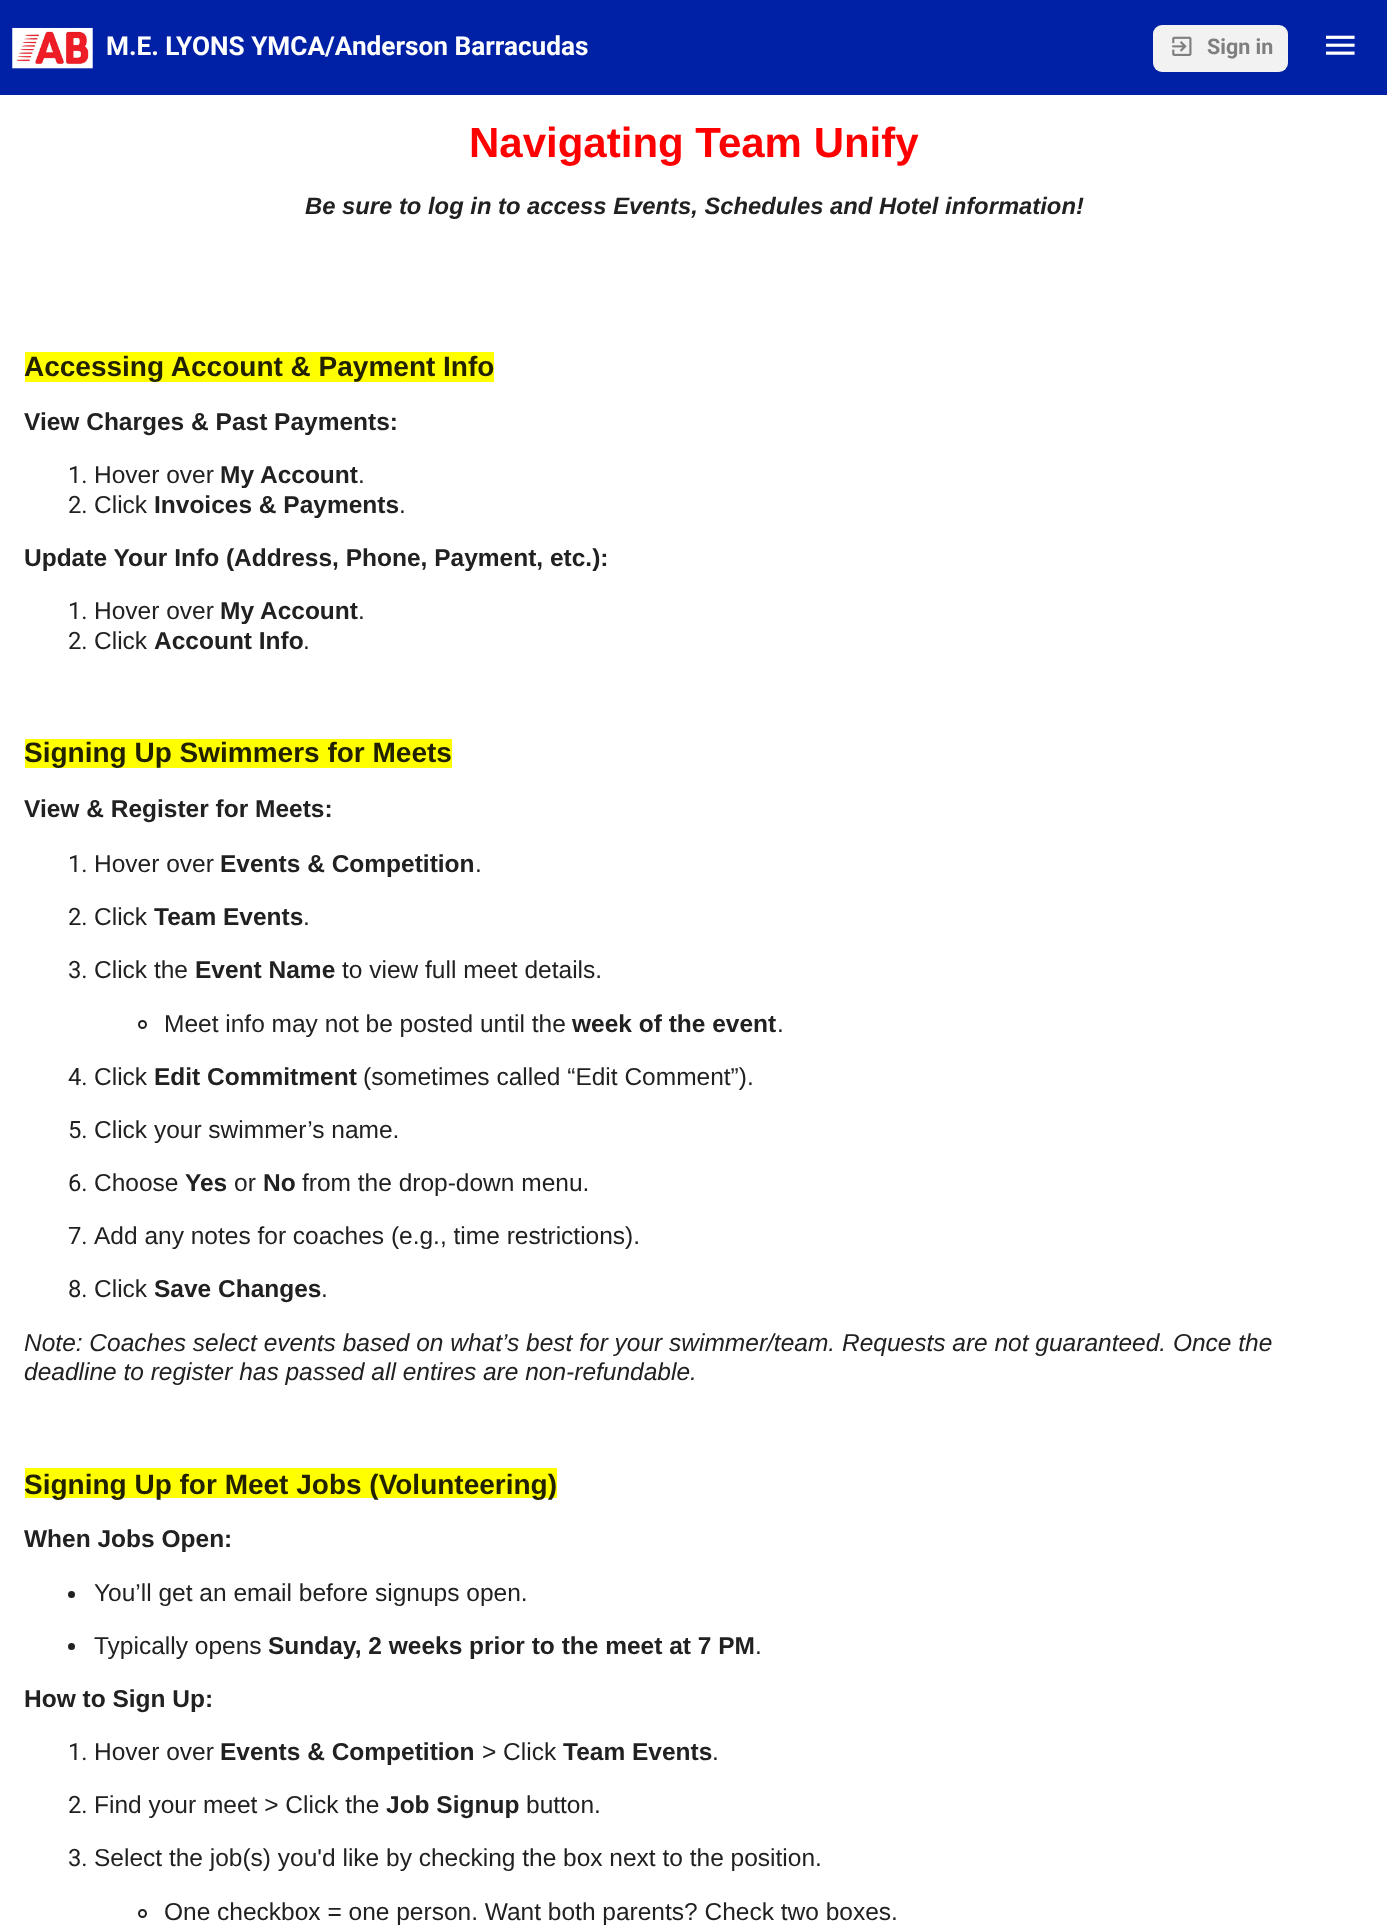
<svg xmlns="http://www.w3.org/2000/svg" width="1387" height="1932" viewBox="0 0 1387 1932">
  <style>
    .t1 { font: bold 26.2px Roboto; fill: #fff; }
    .t2 { font: bold 21.5px Roboto; fill: #7f7f7f; }
    .t3 { font: bold 42px Liberation Sans; fill: #f00; }
    .t4 { font: italic bold 23.8px Liberation Sans; fill: #212121; }
    .t5 { font: bold 28px Liberation Sans; fill: #212100; }
    .t6 { font: bold 24.5px Liberation Sans; fill: #212121; }
    .t7 { font: 23.8px Roboto; fill: #212121; }
    .t8 { font: 24.5px Liberation Sans; fill: #212121; }
    .t9 { font: italic 24.5px Liberation Sans; fill: #212121; }
  </style>
  <rect width="100%" height="100%" fill="#fff"/>
  <rect x="0" y="0" width="1387" height="95" fill="#0021a5"/>
  <image x="12" y="27" width="81" height="42" href="images/1.png"/>
  <text x="106" y="55" class="t1">M.E. LYONS YMCA/Anderson Barracudas</text>
  <rect x="1153" y="25" width="135" height="47" rx="9" fill="#f2f2f2"/>
  <image x="1172" y="36" width="20" height="20" href="images/2.png"/>
  <text x="1207" y="54" class="t2">Sign in</text>
  <image x="1326" y="35" width="29" height="20" href="images/3.png"/>
  <text x="469" y="157" class="t3">Navigating Team Unify</text>
  <text x="305" y="214" class="t4">Be sure to log in to access Events, Schedules and Hotel information!</text>
  <rect x="25" y="352" width="469" height="30" fill="#ff0"/>
  <text x="24" y="376" class="t5">Accessing Account &amp; Payment Info</text>
  <text x="24" y="430" class="t6">View Charges &amp; Past Payments:</text>
  <text x="68" y="483" class="t7">1.</text>
  <text x="94" y="483" class="t8">Hover over</text>
  <text x="220" y="483" class="t6">My Account</text>
  <text x="358" y="483" class="t8">.</text>
  <text x="68" y="513" class="t7">2.</text>
  <text x="94" y="513" class="t8">Click</text>
  <text x="154" y="513" class="t6">Invoices &amp; Payments</text>
  <text x="399" y="513" class="t8">.</text>
  <text x="24" y="566" class="t6">Update Your Info (Address, Phone, Payment, etc.):</text>
  <text x="68" y="619" class="t7">1.</text>
  <text x="94" y="619" class="t8">Hover over</text>
  <text x="220" y="619" class="t6">My Account</text>
  <text x="358" y="619" class="t8">.</text>
  <text x="68" y="649" class="t7">2.</text>
  <text x="94" y="649" class="t8">Click</text>
  <text x="154" y="649" class="t6">Account Info</text>
  <text x="303" y="649" class="t8">.</text>
  <rect x="25" y="739" width="427" height="29" fill="#ff0"/>
  <text x="24" y="762" class="t5">Signing Up Swimmers for Meets</text>
  <text x="24" y="817" class="t6">View &amp; Register for Meets:</text>
  <text x="68" y="872" class="t7">1.</text>
  <text x="94" y="872" class="t8">Hover over</text>
  <text x="220" y="872" class="t6">Events &amp; Competition</text>
  <text x="475" y="872" class="t8">.</text>
  <text x="68" y="925" class="t7">2.</text>
  <text x="94" y="925" class="t8">Click</text>
  <text x="154" y="925" class="t6">Team Events</text>
  <text x="303" y="925" class="t8">.</text>
  <text x="68" y="978" class="t7">3.</text>
  <text x="94" y="978" class="t8">Click the</text>
  <text x="195" y="978" class="t6">Event Name</text>
  <text x="342" y="978" class="t8">to view full meet details.</text>
  <circle cx="142.5" cy="1024.5" r="3.5" fill="none" stroke="#212121" stroke-width="2"/>
  <text x="164" y="1032" class="t8">Meet info may not be posted until the</text>
  <text x="572" y="1032" class="t6">week of the event</text>
  <text x="777" y="1032" class="t8">.</text>
  <text x="68" y="1085" class="t7">4.</text>
  <text x="94" y="1085" class="t8">Click</text>
  <text x="154" y="1085" class="t6">Edit Commitment</text>
  <text x="363" y="1085" class="t8">(sometimes called “Edit Comment”).</text>
  <text x="68" y="1138" class="t7">5.</text>
  <text x="94" y="1138" class="t8">Click your swimmer’s name.</text>
  <text x="68" y="1191" class="t7">6.</text>
  <text x="94" y="1191" class="t8">Choose</text>
  <text x="185" y="1191" class="t6">Yes</text>
  <text x="234" y="1191" class="t8">or</text>
  <text x="263" y="1191" class="t6">No</text>
  <text x="302" y="1191" class="t8">from the drop-down menu.</text>
  <text x="68" y="1244" class="t7">7.</text>
  <text x="94" y="1244" class="t8">Add any notes for coaches (e.g., time restrictions).</text>
  <text x="68" y="1297" class="t7">8.</text>
  <text x="94" y="1297" class="t8">Click</text>
  <text x="154" y="1297" class="t6">Save Changes</text>
  <text x="321" y="1297" class="t8">.</text>
  <text x="24" y="1351" class="t9">Note: Coaches select events based on what’s best for your swimmer/team. Requests are not guaranteed. Once the</text>
  <text x="24" y="1380" class="t9">deadline to register has passed all entires are non-refundable.</text>
  <rect x="25" y="1468" width="532" height="30" fill="#ff0"/>
  <text x="24" y="1494" class="t5">Signing Up for Meet Jobs (Volunteering)</text>
  <text x="24" y="1547" class="t6">When Jobs Open:</text>
  <circle cx="71.5" cy="1594.5" r="3.5" fill="#212121"/>
  <text x="94" y="1601" class="t8">You’ll get an email before signups open.</text>
  <circle cx="71.5" cy="1646.5" r="3.5" fill="#212121"/>
  <text x="94" y="1654" class="t8">Typically opens</text>
  <text x="268" y="1654" class="t6">Sunday, 2 weeks prior to the meet at 7 PM</text>
  <text x="755" y="1654" class="t8">.</text>
  <text x="24" y="1707" class="t6">How to Sign Up:</text>
  <text x="68" y="1760" class="t7">1.</text>
  <text x="94" y="1760" class="t8">Hover over</text>
  <text x="220" y="1760" class="t6">Events &amp; Competition</text>
  <text x="482" y="1760" class="t8">&gt; Click</text>
  <text x="563" y="1760" class="t6">Team Events</text>
  <text x="712" y="1760" class="t8">.</text>
  <text x="68" y="1813" class="t7">2.</text>
  <text x="94" y="1813" class="t8">Find your meet &gt; Click the</text>
  <text x="386" y="1813" class="t6">Job Signup</text>
  <text x="526" y="1813" class="t8">button.</text>
  <text x="68" y="1866" class="t7">3.</text>
  <text x="94" y="1866" class="t8">Select the job(s) you'd like by checking the box next to the position.</text>
  <circle cx="142.5" cy="1913.5" r="3.5" fill="none" stroke="#212121" stroke-width="2"/>
  <text x="164" y="1920" class="t8">One checkbox = one person. Want both parents? Check two boxes.</text>
</svg>
